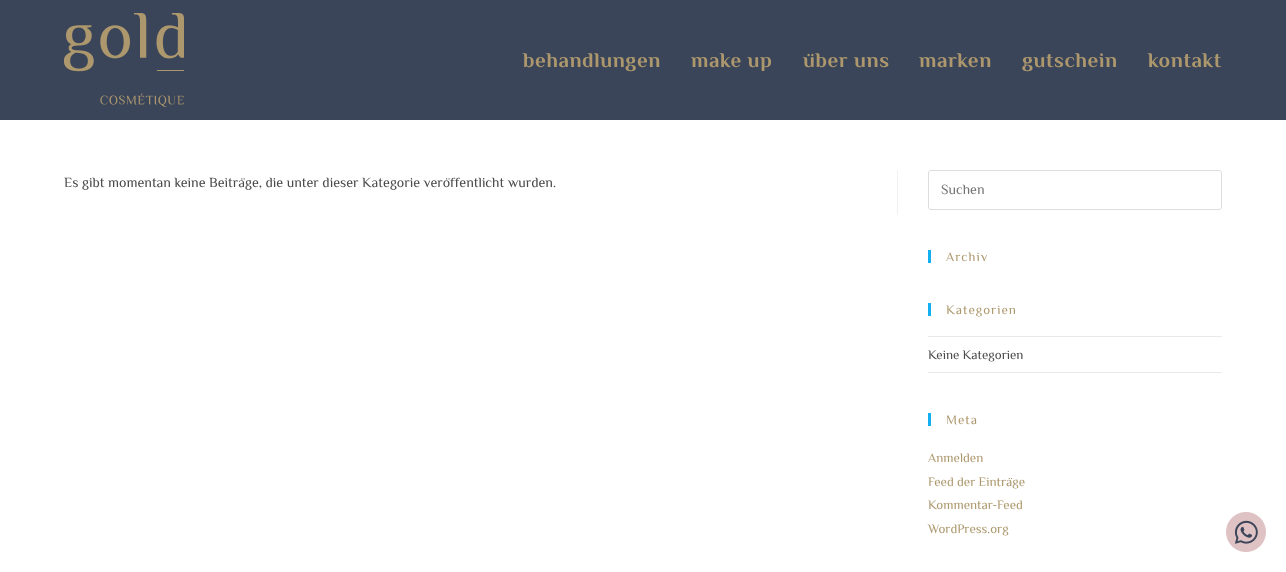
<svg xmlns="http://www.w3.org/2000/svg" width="1286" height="572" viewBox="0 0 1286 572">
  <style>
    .t1 { font: bold 21px Philosopher; letter-spacing: 0.6px; fill: #ad986e; }
    .t2 { font: 14px Philosopher; fill: #4a4a4a; }
    .t3 { font: 14px Philosopher; fill: #757575; }
    .t4 { font: 13px Philosopher; letter-spacing: 1px; fill: #ad986e; }
    .t5 { font: 13px Philosopher; fill: #4a4a4a; }
    .t6 { font: 13px Philosopher; fill: #ad986e; }
  </style>
  <rect width="100%" height="100%" fill="#fff"/>
  <rect x="0" y="0" width="1286" height="120" fill="#3b4559"/>
  <image x="64" y="13" width="120" height="94" href="images/1.png"/>
  <text x="523" y="67" class="t1">behandlungen</text>
  <text x="691" y="67" class="t1">make up</text>
  <text x="803" y="67" class="t1">über uns</text>
  <text x="919" y="67" class="t1">marken</text>
  <text x="1022" y="67" class="t1">gutschein</text>
  <text x="1148" y="67" class="t1">kontakt</text>
  <rect x="897" y="170" width="1" height="45" fill="#f1f1f1"/>
  <text x="64" y="187" class="t2">Es gibt momentan keine Beiträge, die unter dieser Kategorie veröffentlicht wurden.</text>
  <rect x="928.5" y="170.5" width="293" height="39" rx="2.5" fill="none" stroke="#ddd"/>
  <text x="941" y="194" class="t3">Suchen</text>
  <rect x="928" y="250" width="3" height="13" fill="#13aff0"/>
  <text x="946" y="261" class="t4">Archiv</text>
  <rect x="928" y="303" width="3" height="13" fill="#13aff0"/>
  <text x="946" y="314" class="t4">Kategorien</text>
  <rect x="928" y="336" width="294" height="1" fill="#e9e9e9"/>
  <rect x="928" y="372" width="294" height="1" fill="#e9e9e9"/>
  <text x="928" y="359" class="t5">Keine Kategorien</text>
  <rect x="928" y="413" width="3" height="13" fill="#13aff0"/>
  <text x="946" y="424" class="t4">Meta</text>
  <text x="928" y="462" class="t6">Anmelden</text>
  <text x="928" y="486" class="t6">Feed der Einträge</text>
  <text x="928" y="509" class="t6">Kommentar-Feed</text>
  <text x="928" y="533" class="t6">WordPress.org</text>
  <image x="1226" y="512" width="40" height="40" href="images/2.png"/>
</svg>
